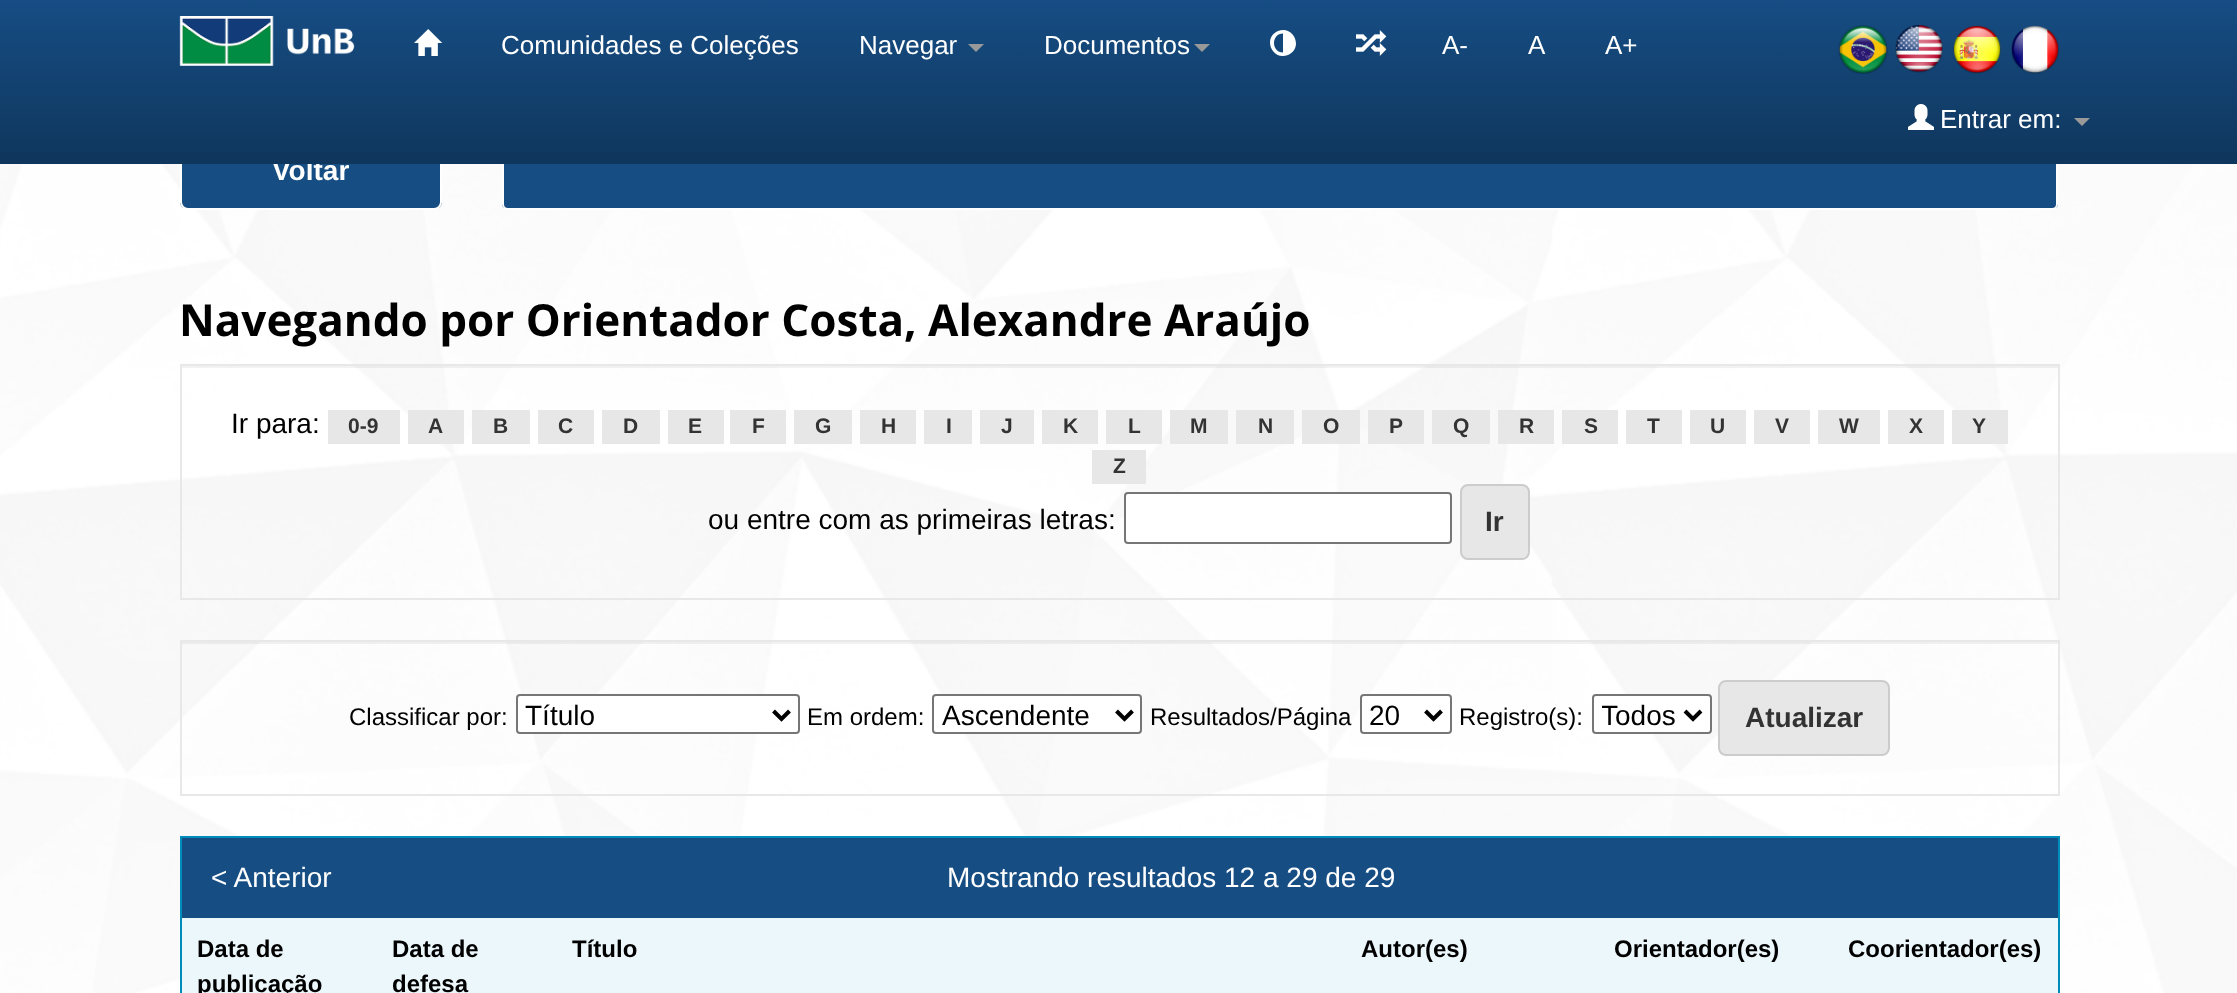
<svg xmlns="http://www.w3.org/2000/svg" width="2237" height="993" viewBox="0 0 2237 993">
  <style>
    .t1 { font: bold 28px Liberation Sans; fill: #fff; }
    .t2 { font: 26px Liberation Sans; fill: #fff; }
    .t3 { font: bold 44px Open Sans; fill: #000; }
    .t4 { font: 28px Liberation Sans; fill: #000; }
    .t5 { font: bold 21px Liberation Sans; fill: #333; }
    .t6 { font: bold 28px Liberation Sans; fill: #333; }
    .t7 { font: 24px Liberation Sans; fill: #000; }
    .t8 { font: 28px Liberation Sans; fill: #fff; }
    .t9 { font: bold 24px Liberation Sans; fill: #000; }
  </style>
  <defs>
    <clipPath id="clip1"><rect x="180" y="130" width="262" height="80" rx="8"/></clipPath>
    <clipPath id="clip2"><rect x="502" y="130" width="1556" height="80" rx="6"/></clipPath>
    <linearGradient id="g1" gradientUnits="userSpaceOnUse" x1="1119" y1="0" x2="1119" y2="164"><stop offset="0" stop-color="#164d84"/><stop offset="1" stop-color="#0f365c"/></linearGradient>
    <clipPath id="clip3"><rect x="1602" y="696" width="76" height="36"/></clipPath>
  </defs>
  <rect width="100%" height="100%" fill="#fff"/>
  <image x="0" y="164" width="2237" height="829" href="images/1.png"/>
  <g clip-path="url(#clip1)">
    <rect x="180" y="164" width="262" height="44" fill="#164d83"/>
  </g>
  <rect x="181" y="131" width="260" height="78" rx="7" fill="none" stroke="#fff" stroke-width="2"/>
  <text x="272" y="180" class="t1">Voltar</text>
  <g clip-path="url(#clip2)">
    <rect x="502" y="164" width="1556" height="44" fill="#164d83"/>
  </g>
  <rect x="503" y="131" width="1554" height="78" rx="5" fill="none" stroke="#fff" stroke-width="2"/>
  <rect x="0" y="0" width="2237" height="164" fill="url(#g1)"/>
  <image x="179" y="16" width="176" height="50" href="images/2.png"/>
  <image x="414" y="29" width="29" height="27" href="images/3.png"/>
  <text x="501" y="54" class="t2">Comunidades e Coleções</text>
  <text x="859" y="54" class="t2">Navegar</text>
  <path d="M968 44H984L976 52Z" fill="#999"/>
  <text x="1044" y="54" class="t2">Documentos</text>
  <path d="M1194 44H1210L1202 52Z" fill="#999"/>
  <path d="M1278 31C1293.5 24.5 1304 48 1288 55C1272.5 61.5 1262 38 1278 31ZM1283 52.5V33.5C1271 33.5 1271 52.5 1283 52.5Z" fill="#fff"/>
  <image x="1356" y="30" width="31" height="26" href="images/4.png"/>
  <text x="1442" y="54" class="t2">A-</text>
  <text x="1528" y="54" class="t2">A</text>
  <text x="1605" y="54" class="t2">A+</text>
  <image x="1838" y="25" width="50" height="49" href="images/5.png"/>
  <image x="1895" y="25" width="48" height="48" href="images/6.png"/>
  <image x="1953" y="25" width="48" height="49" href="images/7.png"/>
  <image x="2011" y="25" width="48" height="49" href="images/8.png"/>
  <image x="1908" y="104" width="26" height="26" href="images/9.png"/>
  <text x="1940" y="128" class="t2">Entrar em:</text>
  <path d="M2074 118H2090L2082 126Z" fill="#999"/>
  <text x="179" y="336" class="t3">Navegando por Orientador Costa, Alexandre Araújo</text>
  <rect x="182" y="366" width="1876" height="2" fill="#0000000d"/>
  <rect x="181" y="365" width="1878" height="234" fill="none" stroke="#e8e8e8" stroke-width="2"/>
  <text x="231" y="433" class="t4">Ir para:</text>
  <rect x="328" y="410" width="72" height="34" fill="#e7e7e7"/>
  <text x="348" y="433" class="t5">0-9</text>
  <rect x="408" y="410" width="56" height="34" fill="#e7e7e7"/>
  <text x="428" y="433" class="t5">A</text>
  <rect x="472" y="410" width="58" height="34" fill="#e7e7e7"/>
  <text x="493" y="433" class="t5">B</text>
  <rect x="538" y="410" width="56" height="34" fill="#e7e7e7"/>
  <text x="558" y="433" class="t5">C</text>
  <rect x="602" y="410" width="58" height="34" fill="#e7e7e7"/>
  <text x="623" y="433" class="t5">D</text>
  <rect x="668" y="410" width="56" height="34" fill="#e7e7e7"/>
  <text x="688" y="433" class="t5">E</text>
  <rect x="730" y="410" width="56" height="34" fill="#e7e7e7"/>
  <text x="752" y="433" class="t5">F</text>
  <rect x="794" y="410" width="58" height="34" fill="#e7e7e7"/>
  <text x="815" y="433" class="t5">G</text>
  <rect x="860" y="410" width="56" height="34" fill="#e7e7e7"/>
  <text x="881" y="433" class="t5">H</text>
  <rect x="924" y="410" width="48" height="34" fill="#e7e7e7"/>
  <text x="946" y="433" class="t5">I</text>
  <rect x="980" y="410" width="54" height="34" fill="#e7e7e7"/>
  <text x="1001" y="433" class="t5">J</text>
  <rect x="1042" y="410" width="56" height="34" fill="#e7e7e7"/>
  <text x="1063" y="433" class="t5">K</text>
  <rect x="1106" y="410" width="56" height="34" fill="#e7e7e7"/>
  <text x="1128" y="433" class="t5">L</text>
  <rect x="1170" y="410" width="58" height="34" fill="#e7e7e7"/>
  <text x="1190" y="433" class="t5">M</text>
  <rect x="1236" y="410" width="58" height="34" fill="#e7e7e7"/>
  <text x="1258" y="433" class="t5">N</text>
  <rect x="1302" y="410" width="58" height="34" fill="#e7e7e7"/>
  <text x="1323" y="433" class="t5">O</text>
  <rect x="1368" y="410" width="56" height="34" fill="#e7e7e7"/>
  <text x="1389" y="433" class="t5">P</text>
  <rect x="1432" y="410" width="58" height="34" fill="#e7e7e7"/>
  <text x="1453" y="433" class="t5">Q</text>
  <rect x="1498" y="410" width="56" height="34" fill="#e7e7e7"/>
  <text x="1519" y="433" class="t5">R</text>
  <rect x="1562" y="410" width="56" height="34" fill="#e7e7e7"/>
  <text x="1584" y="433" class="t5">S</text>
  <rect x="1626" y="410" width="56" height="34" fill="#e7e7e7"/>
  <text x="1647" y="433" class="t5">T</text>
  <rect x="1690" y="410" width="56" height="34" fill="#e7e7e7"/>
  <text x="1710" y="433" class="t5">U</text>
  <rect x="1754" y="410" width="56" height="34" fill="#e7e7e7"/>
  <text x="1775" y="433" class="t5">V</text>
  <rect x="1818" y="410" width="62" height="34" fill="#e7e7e7"/>
  <text x="1839" y="433" class="t5">W</text>
  <rect x="1888" y="410" width="56" height="34" fill="#e7e7e7"/>
  <text x="1909" y="433" class="t5">X</text>
  <rect x="1952" y="410" width="56" height="34" fill="#e7e7e7"/>
  <text x="1972" y="433" class="t5">Y</text>
  <rect x="1092" y="450" width="54" height="34" fill="#e7e7e7"/>
  <text x="1113" y="473" class="t5">Z</text>
  <text x="708" y="529" class="t4">ou entre com as primeiras letras:</text>
  <rect x="1125" y="493" width="326" height="50" rx="3" fill="#fff" stroke="#767676" stroke-width="2"/>
  <rect x="1461" y="485" width="68" height="74" rx="7" fill="#e7e7e7" stroke="#ccc" stroke-width="2"/>
  <text x="1485" y="531" class="t6">Ir</text>
  <rect x="182" y="642" width="1876" height="2" fill="#0000000d"/>
  <rect x="181" y="641" width="1878" height="154" fill="none" stroke="#e8e8e8" stroke-width="2"/>
  <text x="349" y="725" class="t7">Classificar por:</text>
  <rect x="517" y="695" width="282" height="38" rx="3" fill="#fff" stroke="#767676" stroke-width="2"/>
  <path d="M773.5 711L781.5 719L789.5 711" fill="none" stroke="#000" stroke-width="4"/>
  <text x="525" y="725" class="t4">Título</text>
  <text x="807" y="725" class="t7">Em ordem:</text>
  <rect x="933" y="695" width="208" height="38" rx="3" fill="#fff" stroke="#767676" stroke-width="2"/>
  <path d="M1116.5 711L1124.5 719L1132.5 711" fill="none" stroke="#000" stroke-width="4"/>
  <text x="942" y="725" class="t4">Ascendente</text>
  <text x="1150" y="725" class="t7">Resultados/Página</text>
  <rect x="1361" y="695" width="90" height="38" rx="3" fill="#fff" stroke="#767676" stroke-width="2"/>
  <path d="M1425.5 711L1433.5 719L1441.5 711" fill="none" stroke="#000" stroke-width="4"/>
  <text x="1369" y="725" class="t4">20</text>
  <text x="1459" y="725" class="t7">Registro(s):</text>
  <rect x="1593" y="695" width="118" height="38" rx="3" fill="#fff" stroke="#767676" stroke-width="2"/>
  <path d="M1685 711L1693 719L1701 711" fill="none" stroke="#000" stroke-width="4"/>
  <g clip-path="url(#clip3)">
    <text x="1601" y="725" class="t4">Todos</text>
  </g>
  <rect x="1719" y="681" width="170" height="74" rx="7" fill="#e7e7e7" stroke="#ccc" stroke-width="2"/>
  <text x="1745" y="727" class="t6">Atualizar</text>
  <rect x="181" y="837" width="1878" height="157" fill="none" stroke="#008cba" stroke-width="2"/>
  <rect x="182" y="838" width="1876" height="80" fill="#164d83"/>
  <text x="211" y="887" class="t8">&lt; Anterior</text>
  <text x="947" y="887" class="t8">Mostrando resultados 12 a 29 de 29</text>
  <rect x="182" y="918" width="1876" height="75" fill="#ebf7fb"/>
  <text x="197" y="957" class="t9">Data de</text>
  <text x="197" y="992" class="t9">publicação</text>
  <text x="392" y="957" class="t9">Data de</text>
  <text x="392" y="992" class="t9">defesa</text>
  <text x="572" y="957" class="t9">Título</text>
  <text x="1361" y="957" class="t9">Autor(es)</text>
  <text x="1614" y="957" class="t9">Orientador(es)</text>
  <text x="1848" y="957" class="t9">Coorientador(es)</text>
</svg>
